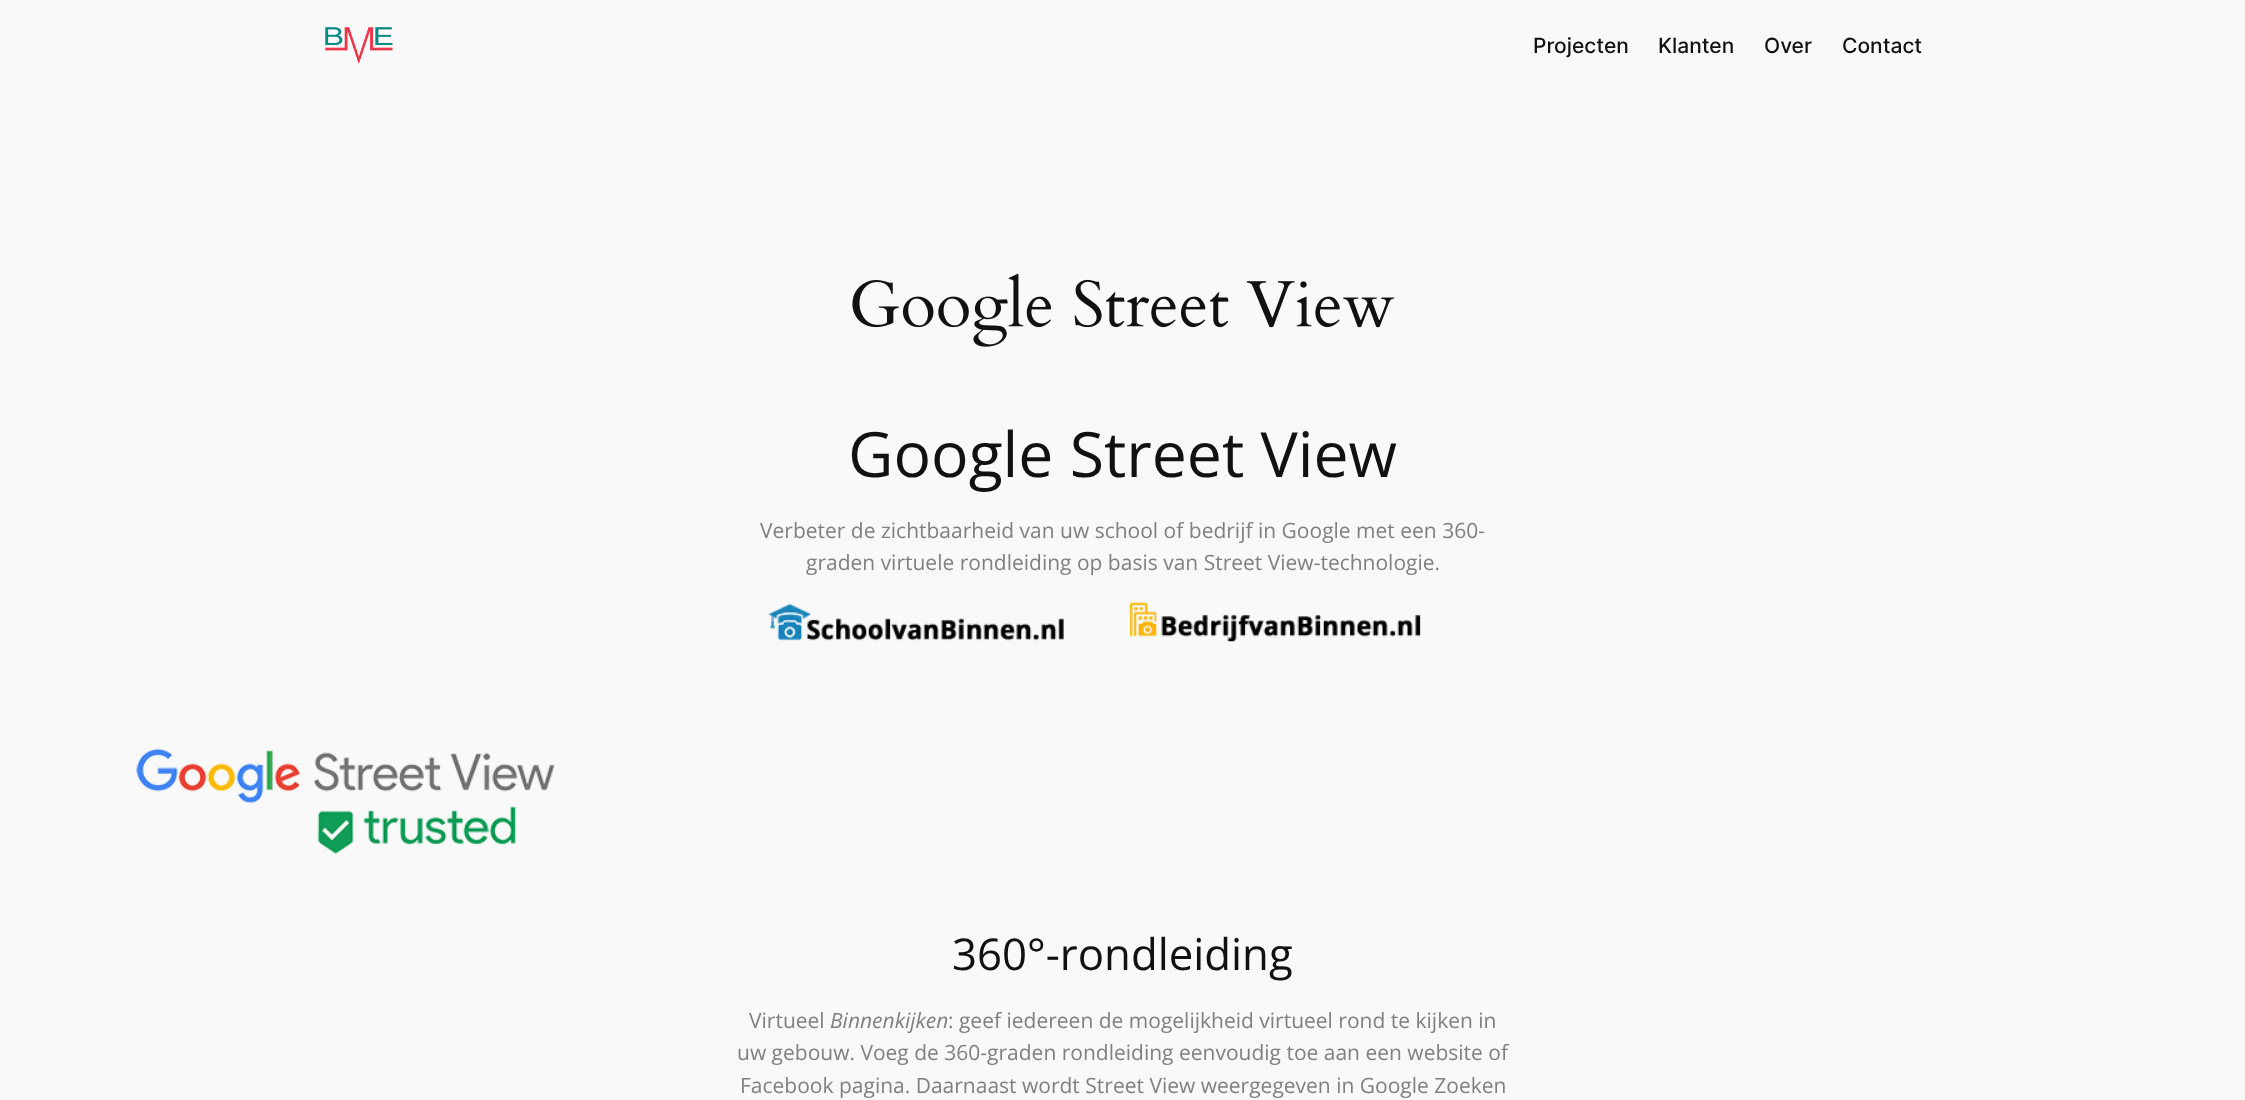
<svg xmlns="http://www.w3.org/2000/svg" width="2245" height="1100" viewBox="0 0 2245 1100">
  <style>
    .t1 { font: 500 21px Inter; fill: #111; }
    .t2 { font: 62.5px Open Sans; fill: #111; }
    .t3 { font: 21px Open Sans; fill: #808080; }
    .t4 { font: 43.75px Open Sans; fill: #111; }
    .t5 { font: italic 21px Open Sans; fill: #808080; }
  </style>
  <rect width="100%" height="100%" fill="#f9f9f9"/>
  <image x="325" y="27" width="68" height="37" href="images/1.png"/>
  <text x="1533" y="53" class="t1">Projecten</text>
  <text x="1658" y="53" class="t1">Klanten</text>
  <text x="1764" y="53" class="t1">Over</text>
  <text x="1842" y="53" class="t1">Contact</text>
  <image x="852" y="273" width="543" height="74" href="images/2.png"/>
  <text x="848" y="477" class="t2">Google Street View</text>
  <text x="760" y="538" class="t3">Verbeter de zichtbaarheid van uw school of bedrijf in Google met een 360-</text>
  <text x="806" y="570" class="t3">graden virtuele rondleiding op basis van Street View-technologie.</text>
  <image x="768" y="603" width="296" height="38" href="images/3.png"/>
  <image x="1129" y="602" width="292" height="40" href="images/4.png"/>
  <image x="136" y="748" width="419" height="106" href="images/5.png"/>
  <text x="952" y="970" class="t4">360°-rondleiding</text>
  <text x="749" y="1028" class="t3">Virtueel</text>
  <text x="830" y="1028" class="t5">Binnenkijken</text>
  <text x="948" y="1028" class="t3">: geef iedereen de mogelijkheid virtueel rond te kijken in</text>
  <text x="737" y="1060" class="t3">uw gebouw. Voeg de 360-graden rondleiding eenvoudig toe aan een website of</text>
  <text x="740" y="1093" class="t3">Facebook pagina. Daarnaast wordt Street View weergegeven in Google Zoeken</text>
</svg>
